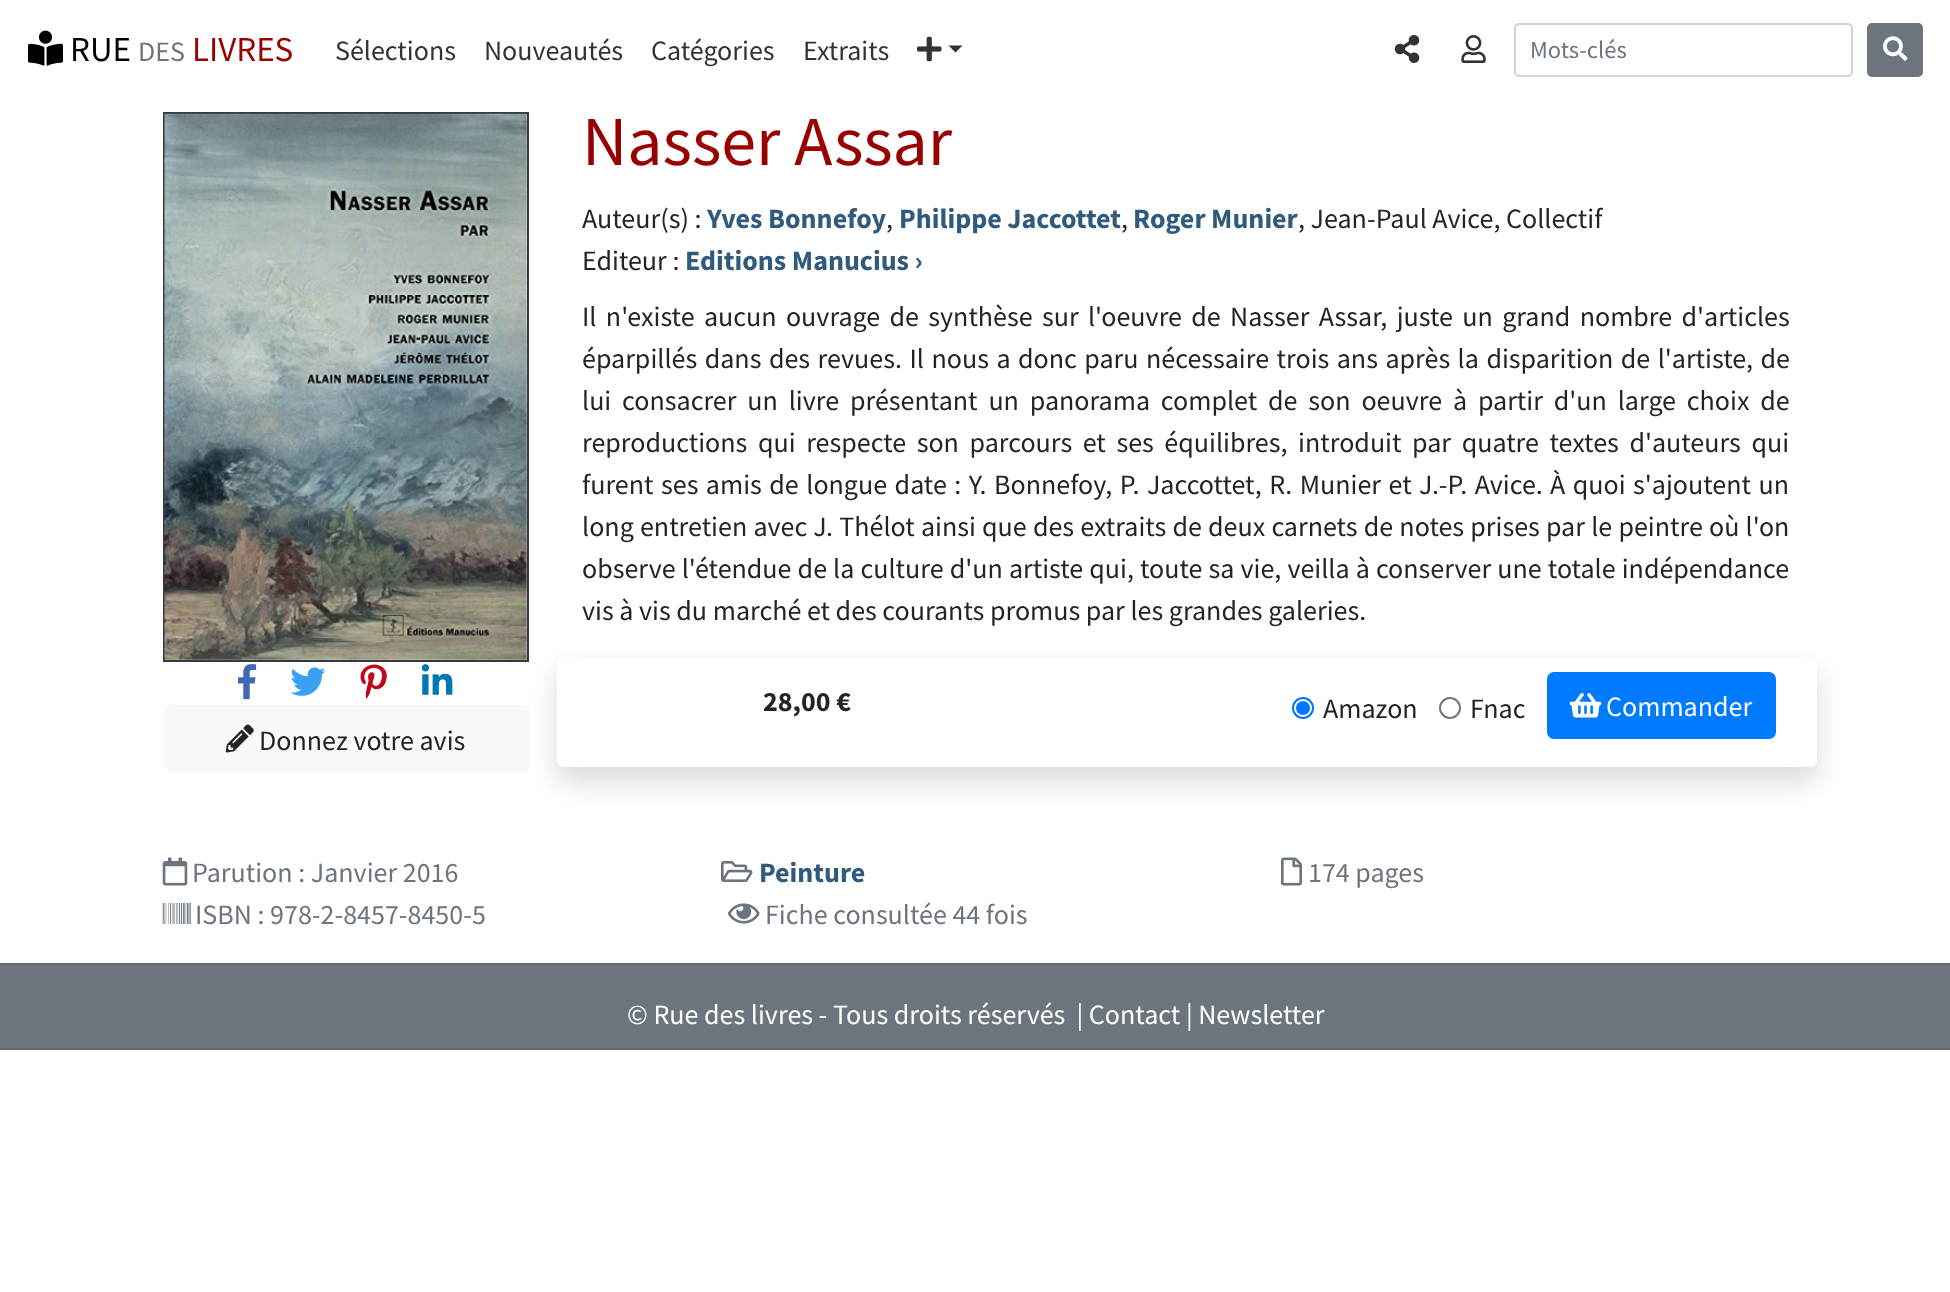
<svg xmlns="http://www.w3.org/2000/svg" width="1950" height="1292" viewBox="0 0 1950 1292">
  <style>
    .t1 { font: 35px Source Sans Pro; fill: #000; }
    .t2 { font: 28px Source Sans Pro; fill: #6c757d; }
    .t3 { font: 35px Source Sans Pro; fill: #900; }
    .t4 { font: 28px Source Sans Pro; fill: #333; }
    .t5 { font: 24.5px Source Sans Pro; fill: #6c757d; }
    .t6 { font: 70px Source Sans Pro; fill: #900; }
    .t7 { font: 28px Source Sans Pro; fill: #212529; }
    .t8 { font: bold 28px Source Sans Pro; fill: #315b7d; }
    .t9 { font: bold 28px Source Sans Pro; fill: #212529; }
    .t10 { font: 28px Source Sans Pro; fill: #fff; }
  </style>
  <rect width="100%" height="100%" fill="#fff"/>
  <image x="28" y="30" width="35" height="36" href="images/1.png"/>
  <text x="70" y="61" class="t1">RUE</text>
  <text x="138" y="61" class="t2">DES</text>
  <text x="192" y="61" class="t3">LIVRES</text>
  <text x="335" y="60" class="t4">Sélections</text>
  <text x="484" y="60" class="t4">Nouveautés</text>
  <text x="651" y="60" class="t4">Catégories</text>
  <text x="803" y="60" class="t4">Extraits</text>
  <image x="917" y="36" width="25" height="26" href="images/2.png"/>
  <path d="M948.5 45.5H962.5L955.5 52.5Z" fill="#333"/>
  <image x="1394" y="35" width="26" height="28" href="images/3.png"/>
  <image x="1461" y="35" width="25" height="28" href="images/4.png"/>
  <rect x="1515" y="24" width="337" height="52" rx="4" fill="none" stroke="#ced4da" stroke-width="2"/>
  <text x="1530" y="58" class="t5">Mots-clés</text>
  <rect x="1868" y="24" width="54" height="52" rx="4" fill="#6c757d" stroke="#6c757d" stroke-width="2"/>
  <image x="1883" y="36" width="25" height="25" href="images/5.png"/>
  <text x="582" y="165" class="t6">Nasser Assar</text>
  <text x="582" y="228" class="t7">Auteur(s) :</text>
  <text x="707" y="228" class="t8">Yves Bonnefoy</text>
  <text x="886" y="228" class="t7">,</text>
  <text x="899" y="228" class="t8">Philippe Jaccottet</text>
  <text x="1121" y="228" class="t7">,</text>
  <text x="1133" y="228" class="t8">Roger Munier</text>
  <text x="1298" y="228" class="t7">, Jean-Paul Avice, Collectif</text>
  <text x="582" y="270" class="t7">Editeur :</text>
  <text x="685" y="270" class="t8">Editions Manucius ›</text>
  <text x="582" y="326" word-spacing="3.75" class="t7">Il n'existe aucun ouvrage de synthèse sur l'oeuvre de Nasser Assar, juste un grand nombre d'articles</text>
  <text x="582" y="368" word-spacing="1.9" class="t7">éparpillés dans des revues. Il nous a donc paru nécessaire trois ans après la disparition de l'artiste, de</text>
  <text x="582" y="410" word-spacing="5.25" class="t7">lui consacrer un livre présentant un panorama complet de son oeuvre à partir d'un large choix de</text>
  <text x="582" y="452" word-spacing="5" class="t7">reproductions qui respecte son parcours et ses équilibres, introduit par quatre textes d'auteurs qui</text>
  <text x="582" y="494" word-spacing="1.9" class="t7">furent ses amis de longue date : Y. Bonnefoy, P. Jaccottet, R. Munier et J.-P. Avice.</text>
  <text x="1550" y="494" word-spacing="1.9" class="t7">À quoi s'ajoutent un</text>
  <text x="582" y="536" word-spacing="0.6" class="t7">long entretien avec J. Thélot ainsi que des extraits de deux carnets de notes prises par le peintre où l'on</text>
  <text x="582" y="578" word-spacing="0.5" class="t7">observe l'étendue de la culture d'un artiste qui, toute sa vie, veilla à conserver une totale indépendance</text>
  <text x="582" y="620" class="t7">vis à vis du marché et des courants promus par les grandes galeries.</text>
  <rect x="164" y="113" width="364" height="548" fill="none" stroke="#343a40" stroke-width="2"/>
  <image x="164" y="113" width="363" height="547" href="images/7.png"/>
  <rect x="163" y="705" width="367" height="67" rx="7" fill="#f8f9fa"/>
  <rect x="557" y="672" width="1260" height="109" rx="7" fill="#00000026" filter="blur(14px)"/>
  <rect x="557" y="658" width="1260" height="109" rx="7" fill="#fff"/>
  <text x="763" y="711" class="t9">28,00 €</text>
  <circle cx="1303" cy="708" r="10" fill="none" stroke="#0075ff" stroke-width="2"/>
  <circle cx="1303" cy="708" r="7" fill="#0075ff"/>
  <text x="1323" y="718" class="t7">Amazon</text>
  <circle cx="1450" cy="708" r="10" fill="none" stroke="#767676" stroke-width="2"/>
  <text x="1470" y="718" class="t7">Fnac</text>
  <rect x="1548" y="673" width="227" height="65" rx="6" fill="#007bff" stroke="#007bff" stroke-width="2"/>
  <image x="1569" y="693" width="33" height="25" href="images/6.png"/>
  <text x="1606" y="716" class="t10">Commander</text>
  <image x="238" y="664" width="19" height="36" href="images/8.png"/>
  <image x="290" y="667" width="36" height="29" href="images/9.png"/>
  <image x="360" y="664" width="27" height="35" href="images/10.png"/>
  <image x="421" y="664" width="32" height="31" href="images/11.png"/>
  <image x="225" y="724" width="29" height="29" href="images/12.png"/>
  <text x="259" y="750" class="t7">Donnez votre avis</text>
  <image x="162" y="857" width="26" height="29" href="images/13.png"/>
  <text x="192" y="882" class="t2">Parution : Janvier 2016</text>
  <image x="721" y="861" width="32" height="21" href="images/14.png"/>
  <text x="759" y="882" class="t8">Peinture</text>
  <image x="1281" y="857" width="21" height="29" href="images/15.png"/>
  <text x="1308" y="882" class="t2">174 pages</text>
  <image x="162" y="903" width="29" height="21" href="images/16.png"/>
  <text x="195" y="924" class="t2">ISBN : 978-2-8457-8450-5</text>
  <image x="728" y="903" width="32" height="21" href="images/17.png"/>
  <text x="765" y="924" class="t2">Fiche consultée 44 fois</text>
  <rect x="0" y="965" width="1950" height="83" fill="#6c757d"/>
  <rect x="0" y="1048" width="1950" height="2" fill="#666"/>
  <rect x="0" y="963" width="1950" height="2" fill="#616971"/>
  <text x="627" y="1024" class="t10" xml:space="preserve">© Rue des livres - Tous droits réservés  | Contact | Newsletter</text>
</svg>
